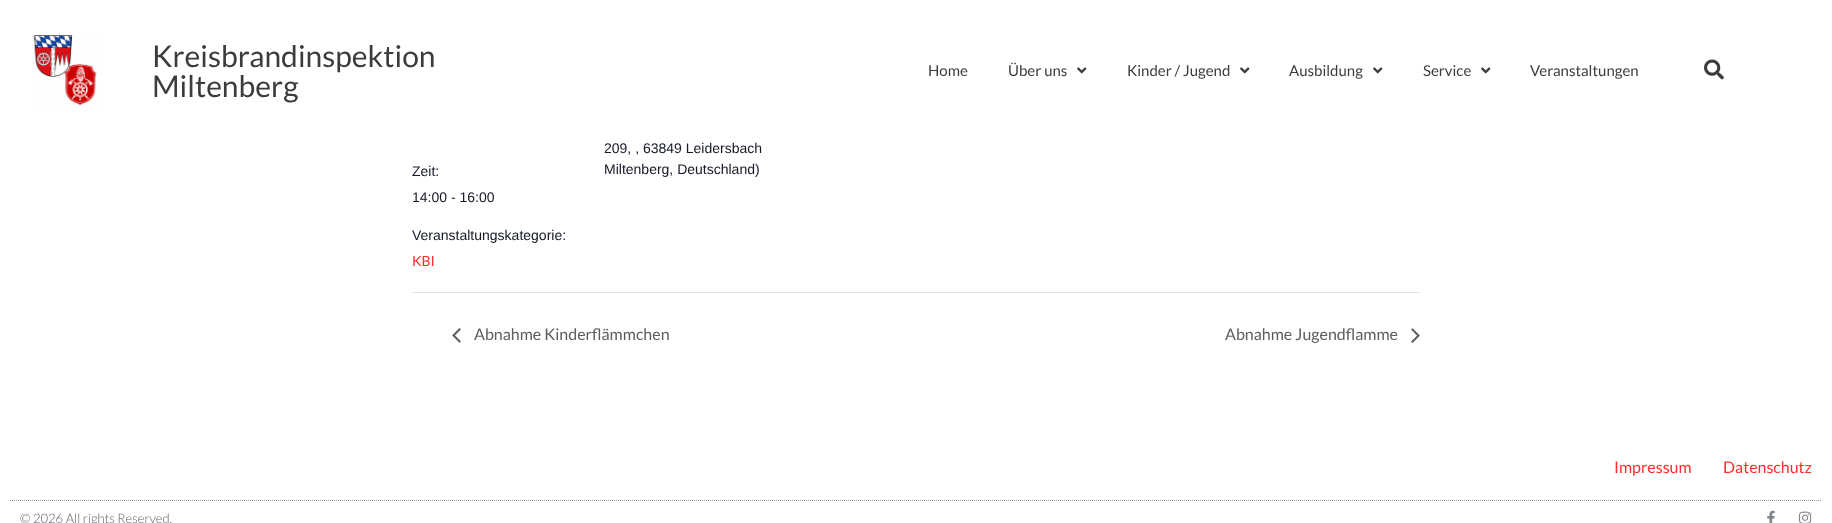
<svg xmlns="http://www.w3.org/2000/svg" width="1832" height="523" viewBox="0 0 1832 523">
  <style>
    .t1 { font: 30px Lato; fill: #3c3c3c; }
    .t2 { font: 15px Lato; fill: #3c3c3c; }
    .t3 { font: 14px Liberation Sans; fill: #141827; }
    .t4 { font: 14px Lato; fill: #ff2d2d; }
    .t5 { font: 16px Lato; fill: #5d5d5d; }
    .t6 { font: 16px Lato; fill: #ff2d2d; }
    .t7 { font: 300 13px Lato; fill: #54595f; }
  </style>
  <rect width="100%" height="100%" fill="#fff"/>
  <image x="33" y="35" width="64" height="70" href="images/1.png"/>
  <text x="152" y="67" class="t1">Kreisbrandinspektion</text>
  <text x="152" y="97" class="t1">Miltenberg</text>
  <text x="928" y="76" class="t2">Home</text>
  <text x="1008" y="76" class="t2">Über uns</text>
  <image x="1077" y="67" width="10" height="7" href="images/2.png"/>
  <text x="1127" y="76" class="t2">Kinder / Jugend</text>
  <image x="1240" y="67" width="10" height="7" href="images/2.png"/>
  <text x="1289" y="76" class="t2">Ausbildung</text>
  <image x="1373" y="67" width="10" height="7" href="images/2.png"/>
  <text x="1423" y="76" class="t2">Service</text>
  <image x="1481" y="67" width="10" height="7" href="images/2.png"/>
  <text x="1530" y="76" class="t2">Veranstaltungen</text>
  <image x="1704" y="59" width="20" height="21" href="images/3.png"/>
  <text x="604" y="153" class="t3">209, , 63849 Leidersbach</text>
  <text x="604" y="174" class="t3">Miltenberg, Deutschland)</text>
  <text x="412" y="176" class="t3">Zeit:</text>
  <text x="412" y="202" class="t3">14:00 - 16:00</text>
  <text x="412" y="240" class="t3">Veranstaltungskategorie:</text>
  <text x="412" y="266" class="t4">KBI</text>
  <rect x="412" y="292" width="1008" height="1" fill="#e4e4e4"/>
  <image x="452" y="328" width="9" height="15" href="images/4.png"/>
  <text x="474" y="340" class="t5">Abnahme Kinderflämmchen</text>
  <text x="1225" y="340" class="t5">Abnahme Jugendflamme</text>
  <image x="1411" y="328" width="9" height="15" href="images/5.png"/>
  <path d="M10 500.5H1822" fill="none" stroke="#9b9b9b" stroke-dasharray="1 1"/>
  <text x="1614" y="473" class="t6">Impressum</text>
  <text x="1723" y="473" class="t6">Datenschutz</text>
  <text x="20" y="523" class="t7">© 2026 All rights Reserved.</text>
  <image x="1767" y="510" width="8" height="13" href="images/6.png"/>
  <image x="1798" y="511" width="14" height="12" href="images/7.png"/>
</svg>
